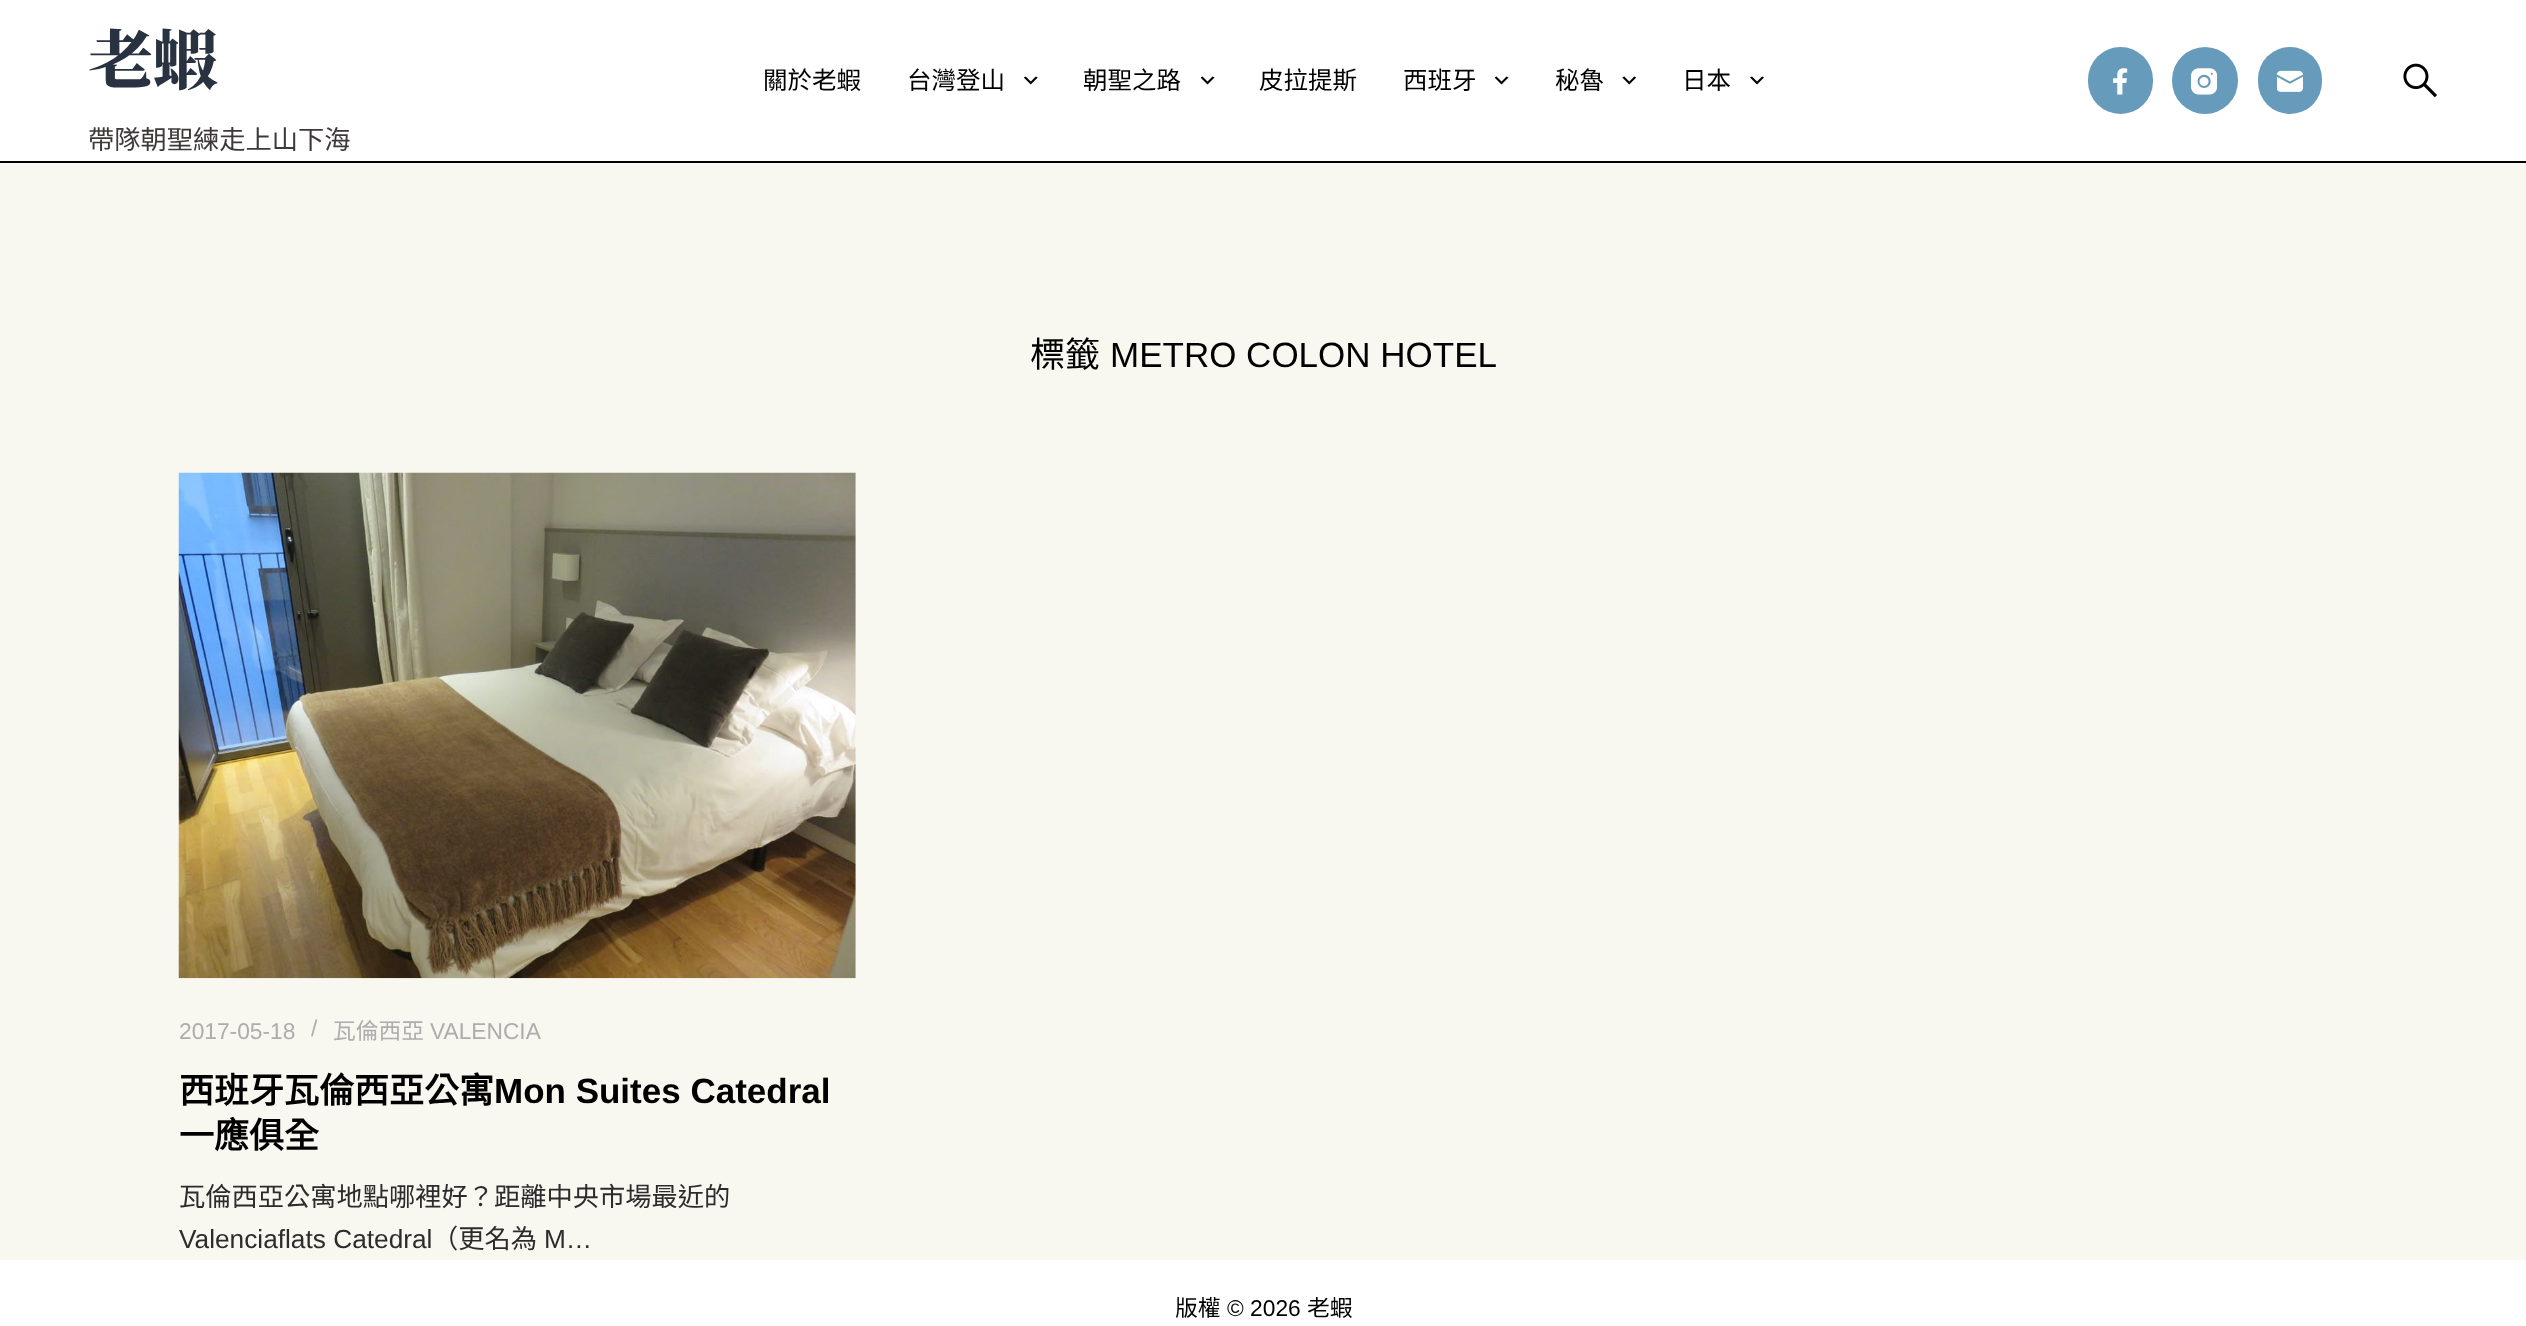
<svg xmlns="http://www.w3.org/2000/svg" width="2526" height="1326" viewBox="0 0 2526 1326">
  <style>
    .t1 { font: 900 65px Noto Serif TC; fill: #293241; }
    .t2 { font: 26.25px Noto Sans CJK TC; fill: #3d3939; }
    .t3 { font: 24.5px Noto Sans CJK TC; fill: #000; }
    .t4 { font: 35px Noto Sans CJK TC; fill: #000; }
    .t5 { font: 35px Liberation Sans; fill: #000; }
    .t6 { font: 22.75px Liberation Sans; fill: #adadad; }
    .t7 { font: 22.75px Noto Sans CJK TC; fill: #adadad; }
    .t8 { font: bold 35px Noto Sans CJK TC; fill: #000; }
    .t9 { font: bold 35px Liberation Sans; fill: #000; }
    .t10 { font: 26.25px Noto Sans CJK TC; fill: #2c2c2c; }
    .t11 { font: 26.25px Liberation Sans; fill: #2c2c2c; }
    .t12 { font: 22.75px Noto Sans CJK TC; fill: #000; }
    .t13 { font: 22.75px Liberation Sans; fill: #000; }
  </style>
  <rect width="100%" height="100%" fill="#f8f7f0"/>
  <rect x="0" y="0" width="2526" height="161" fill="#fff"/>
  <rect x="0" y="161" width="2526" height="2" fill="#000"/>
  <text x="88" y="84" class="t1">老蝦</text>
  <text x="88" y="149" class="t2">帶隊朝聖練走上山下海</text>
  <text x="763" y="89" class="t3">關於老蝦</text>
  <text x="907" y="89" class="t3">台灣登山</text>
  <image x="1024" y="76" width="14" height="9" href="images/1.png"/>
  <text x="1083" y="89" class="t3">朝聖之路</text>
  <image x="1201" y="76" width="14" height="9" href="images/2.png"/>
  <text x="1259" y="89" class="t3">皮拉提斯</text>
  <text x="1403" y="89" class="t3">西班牙</text>
  <image x="1495" y="76" width="14" height="9" href="images/2.png"/>
  <text x="1555" y="89" class="t3">秘魯</text>
  <image x="1622" y="76" width="14" height="9" href="images/3.png"/>
  <text x="1682" y="89" class="t3">日本</text>
  <image x="1750" y="76" width="14" height="9" href="images/4.png"/>
  <rect x="2088" y="47" width="65" height="67" rx="32.5" fill="#669bbc"/>
  <image x="2113" y="68" width="15" height="27" href="images/5.png"/>
  <rect x="2172" y="47" width="66" height="67" rx="33" fill="#669bbc"/>
  <image x="2191" y="68" width="26" height="27" href="images/6.png"/>
  <rect x="2258" y="47" width="64" height="67" rx="32" fill="#669bbc"/>
  <image x="2277" y="70" width="26" height="22" href="images/7.png"/>
  <image x="2403" y="63" width="34" height="35" href="images/8.png"/>
  <text x="1030" y="367" class="t4">標籤</text>
  <text x="1110" y="367" class="t5">METRO COLON HOTEL</text>
  <image x="178" y="472" width="678" height="507" href="images/9.png"/>
  <text x="179" y="1039" class="t6">2017-05-18</text>
  <text x="311" y="1036" class="t6">/</text>
  <text x="333" y="1039" class="t7">瓦倫西亞</text>
  <text x="430" y="1039" class="t6">VALENCIA</text>
  <text x="179" y="1103" class="t8">西班牙瓦倫西亞公寓</text>
  <text x="494" y="1103" class="t9">Mon Suites Catedral</text>
  <text x="179" y="1148" class="t8">一應俱全</text>
  <text x="179" y="1206" class="t10">瓦倫西亞公寓地點哪裡好？距離中央市場最近的</text>
  <text x="179" y="1248" class="t11">Valenciaflats Catedral</text>
  <text x="432" y="1248" class="t10">（更名為</text>
  <text x="544" y="1248" class="t11">M…</text>
  <rect x="0" y="1260" width="2526" height="66" fill="#fff"/>
  <text x="1175" y="1316" class="t12">版權</text>
  <text x="1227" y="1316" class="t13">© 2026</text>
  <text x="1307" y="1316" class="t12">老蝦</text>
</svg>
